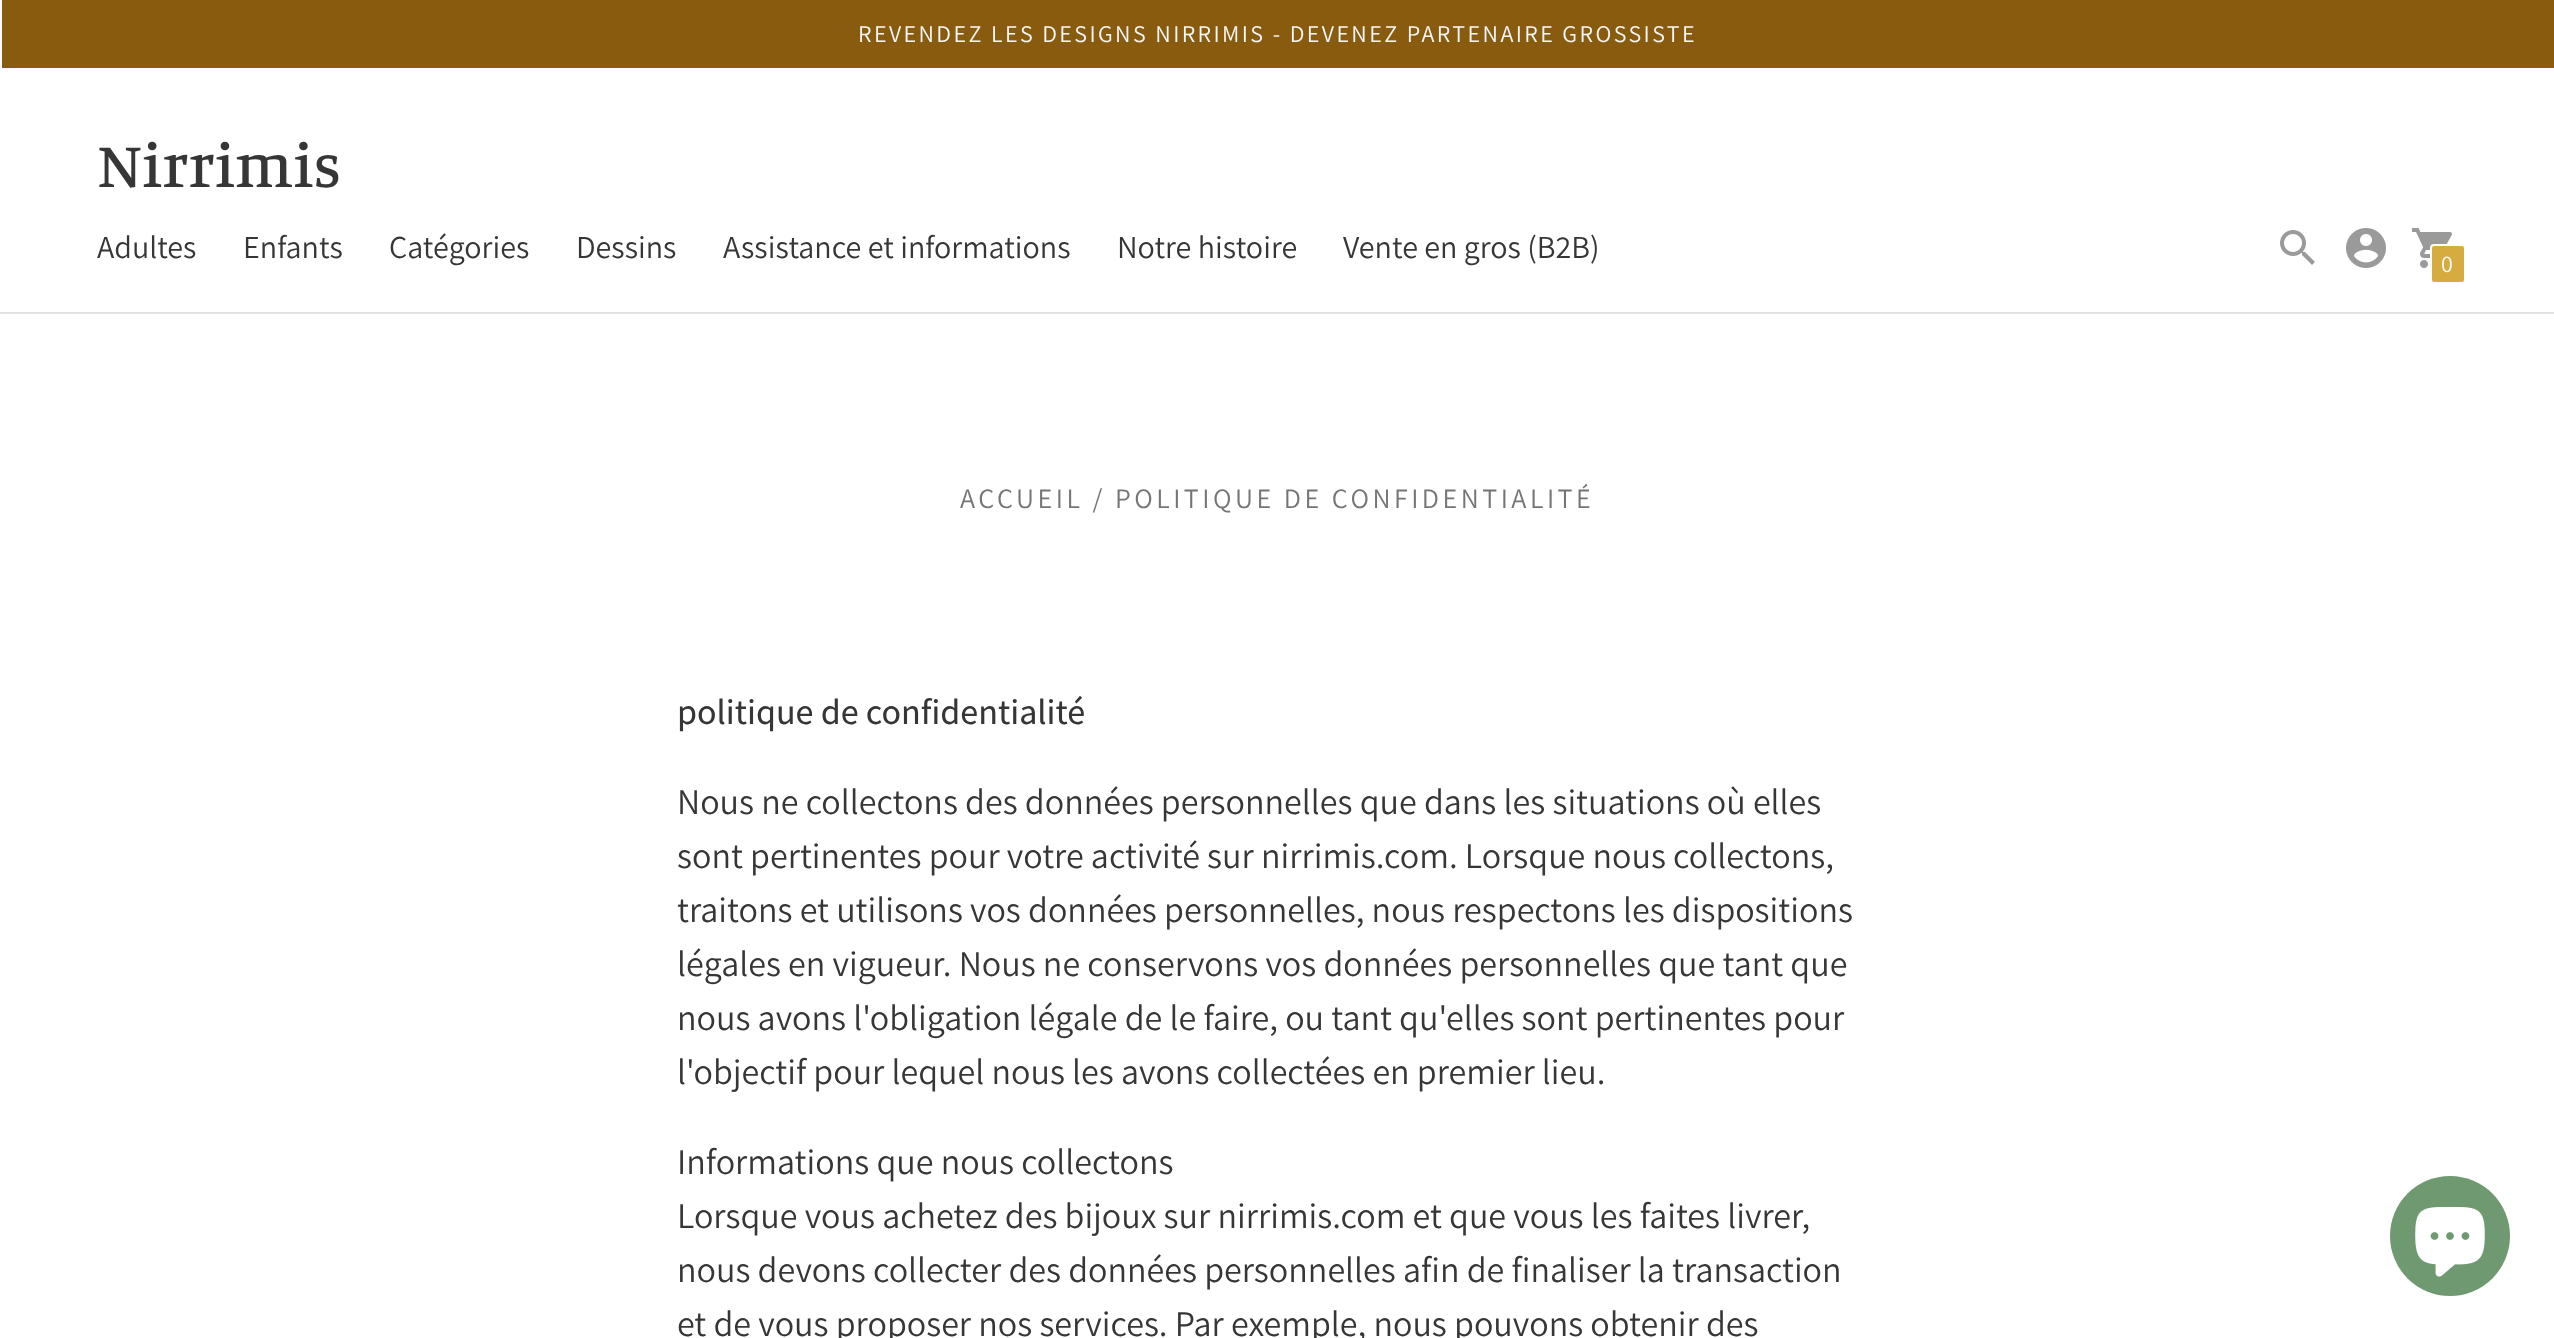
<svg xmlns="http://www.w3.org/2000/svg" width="2554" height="1338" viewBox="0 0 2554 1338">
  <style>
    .t1 { font: 24px Assistant; letter-spacing: 2.4px; fill: #f9f9f9; }
    .t2 { font: 500 64px Manuale; fill: #363636; }
    .t3 { font: 32px Assistant; fill: #363636; }
    .t4 { font: 24px Assistant; fill: #fff; }
    .t5 { font: 28px Assistant; letter-spacing: 3.5px; fill: #757575; }
    .t6 { font: 500 36px Assistant; fill: #363636; }
    .t7 { font: 36px Assistant; fill: #363636; }
  </style>
  <rect width="100%" height="100%" fill="#fff"/>
  <rect x="2" y="0" width="2552" height="68" fill="#895b0f"/>
  <text x="858" y="42" class="t1">REVENDEZ LES DESIGNS NIRRIMIS - DEVENEZ PARTENAIRE GROSSISTE</text>
  <rect x="0" y="312" width="2554" height="2" fill="#e2e2e2"/>
  <text x="97" y="187" class="t2">Nirrimis</text>
  <text x="97" y="258" class="t3">Adultes</text>
  <text x="243" y="258" class="t3">Enfants</text>
  <text x="389" y="258" class="t3">Catégories</text>
  <text x="576" y="258" class="t3">Dessins</text>
  <text x="723" y="258" class="t3">Assistance et informations</text>
  <text x="1117" y="258" class="t3">Notre histoire</text>
  <text x="1343" y="258" class="t3">Vente en gros (B2B)</text>
  <image x="2280" y="230" width="35" height="35" href="images/1.png"/>
  <image x="2346" y="228" width="40" height="40" href="images/2.png"/>
  <image x="2412" y="228" width="40" height="40" href="images/3.png"/>
  <rect x="2431" y="245" width="34" height="38" rx="3" fill="#d6ab40" stroke="#fff" stroke-width="2"/>
  <text x="2441" y="272" class="t4">0</text>
  <text x="960" y="508" class="t5">ACCUEIL / POLITIQUE DE CONFIDENTIALITÉ</text>
  <text x="677" y="724" class="t6">politique de confidentialité</text>
  <text x="677" y="814" class="t7">Nous ne collectons des données personnelles que dans les situations où elles</text>
  <text x="677" y="868" class="t7">sont pertinentes pour votre activité sur nirrimis.com. Lorsque nous collectons,</text>
  <text x="677" y="922" class="t7">traitons et utilisons vos données personnelles, nous respectons les dispositions</text>
  <text x="677" y="976" class="t7">légales en vigueur. Nous ne conservons vos données personnelles que tant que</text>
  <text x="677" y="1030" class="t7">nous avons l'obligation légale de le faire, ou tant qu'elles sont pertinentes pour</text>
  <text x="677" y="1084" class="t7">l'objectif pour lequel nous les avons collectées en premier lieu.</text>
  <text x="677" y="1174" class="t7">Informations que nous collectons</text>
  <text x="677" y="1228" class="t7">Lorsque vous achetez des bijoux sur nirrimis.com et que vous les faites livrer,</text>
  <text x="677" y="1282" class="t7">nous devons collecter des données personnelles afin de finaliser la transaction</text>
  <text x="677" y="1336" class="t7">et de vous proposer nos services. Par exemple, nous pouvons obtenir des</text>
  <circle cx="2450" cy="1236" r="60" fill="#6f9a71"/>
  <image x="2415" y="1207" width="70" height="70" href="images/4.png"/>
</svg>
